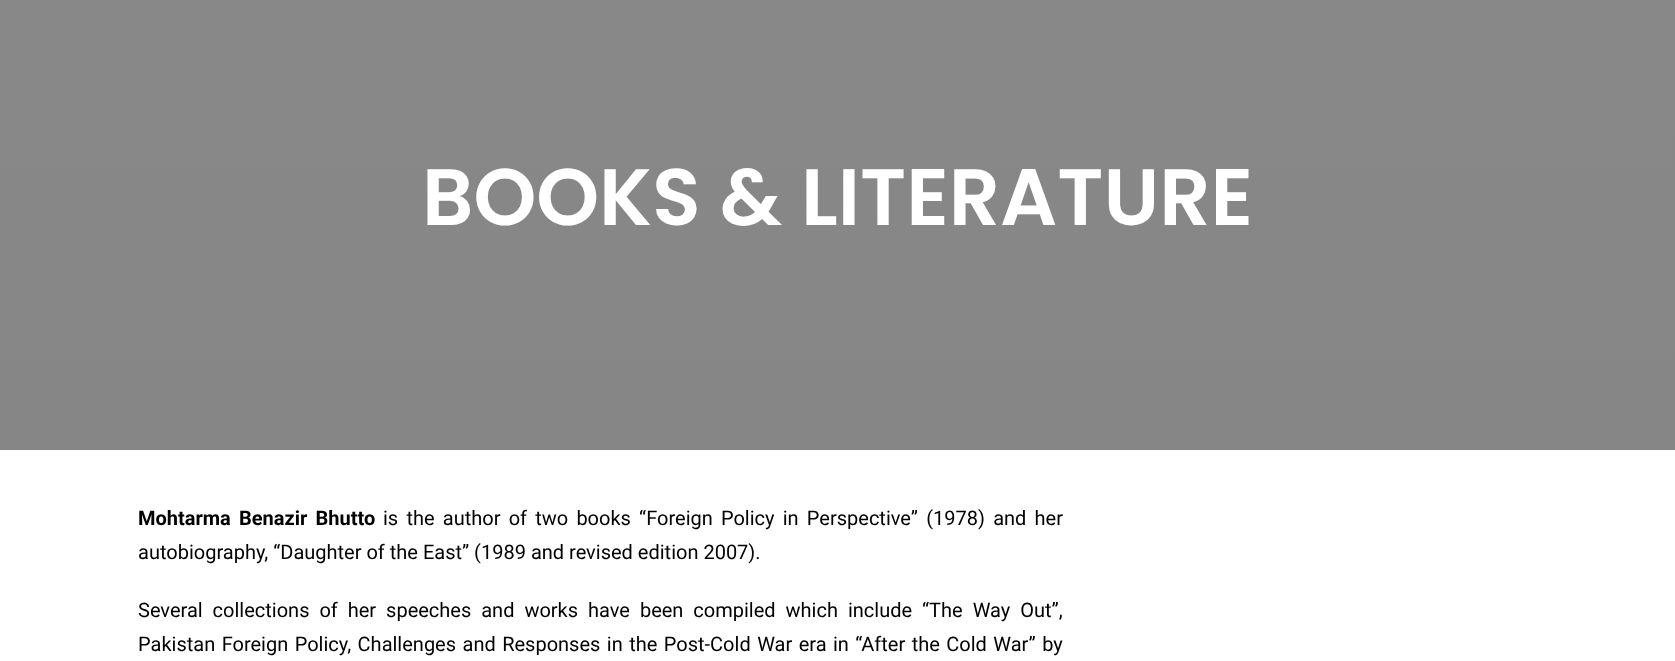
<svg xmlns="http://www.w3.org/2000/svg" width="1675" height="661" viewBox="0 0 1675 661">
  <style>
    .t1 { font: 600 80px Poppins; fill: #fff; }
    .t2 { font: bold 20px Roboto; fill: #000; }
    .t3 { font: 20px Roboto; fill: #000; }
  </style>
  <defs>
    <linearGradient id="g1" gradientUnits="userSpaceOnUse" x1="838" y1="-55" x2="838" y2="450"><stop offset="0" stop-color="#888"/><stop offset="1" stop-color="#868686"/></linearGradient>
  </defs>
  <rect width="100%" height="100%" fill="#fff"/>
  <rect x="0" y="0" width="1675" height="450" fill="url(#g1)"/>
  <text x="422" y="225" class="t1">BOOKS &amp; LITERATURE</text>
  <text x="138" y="525" word-spacing="3.25" class="t2">Mohtarma Benazir Bhutto</text>
  <text x="383" y="525" word-spacing="3.25" class="t3">is the author of two books “Foreign Policy in Perspective” (1978) and her</text>
  <text x="138" y="559" class="t3">autobiography, “Daughter of the East” (1989 and revised edition 2007).</text>
  <text x="138" y="617" word-spacing="5" class="t3">Several collections of her speeches and works have been compiled which include “The Way Out”,</text>
  <text x="138" y="651" word-spacing="1.5" class="t3">Pakistan Foreign Policy, Challenges and Responses in the Post-Cold War era in “After the Cold War” by</text>
</svg>
